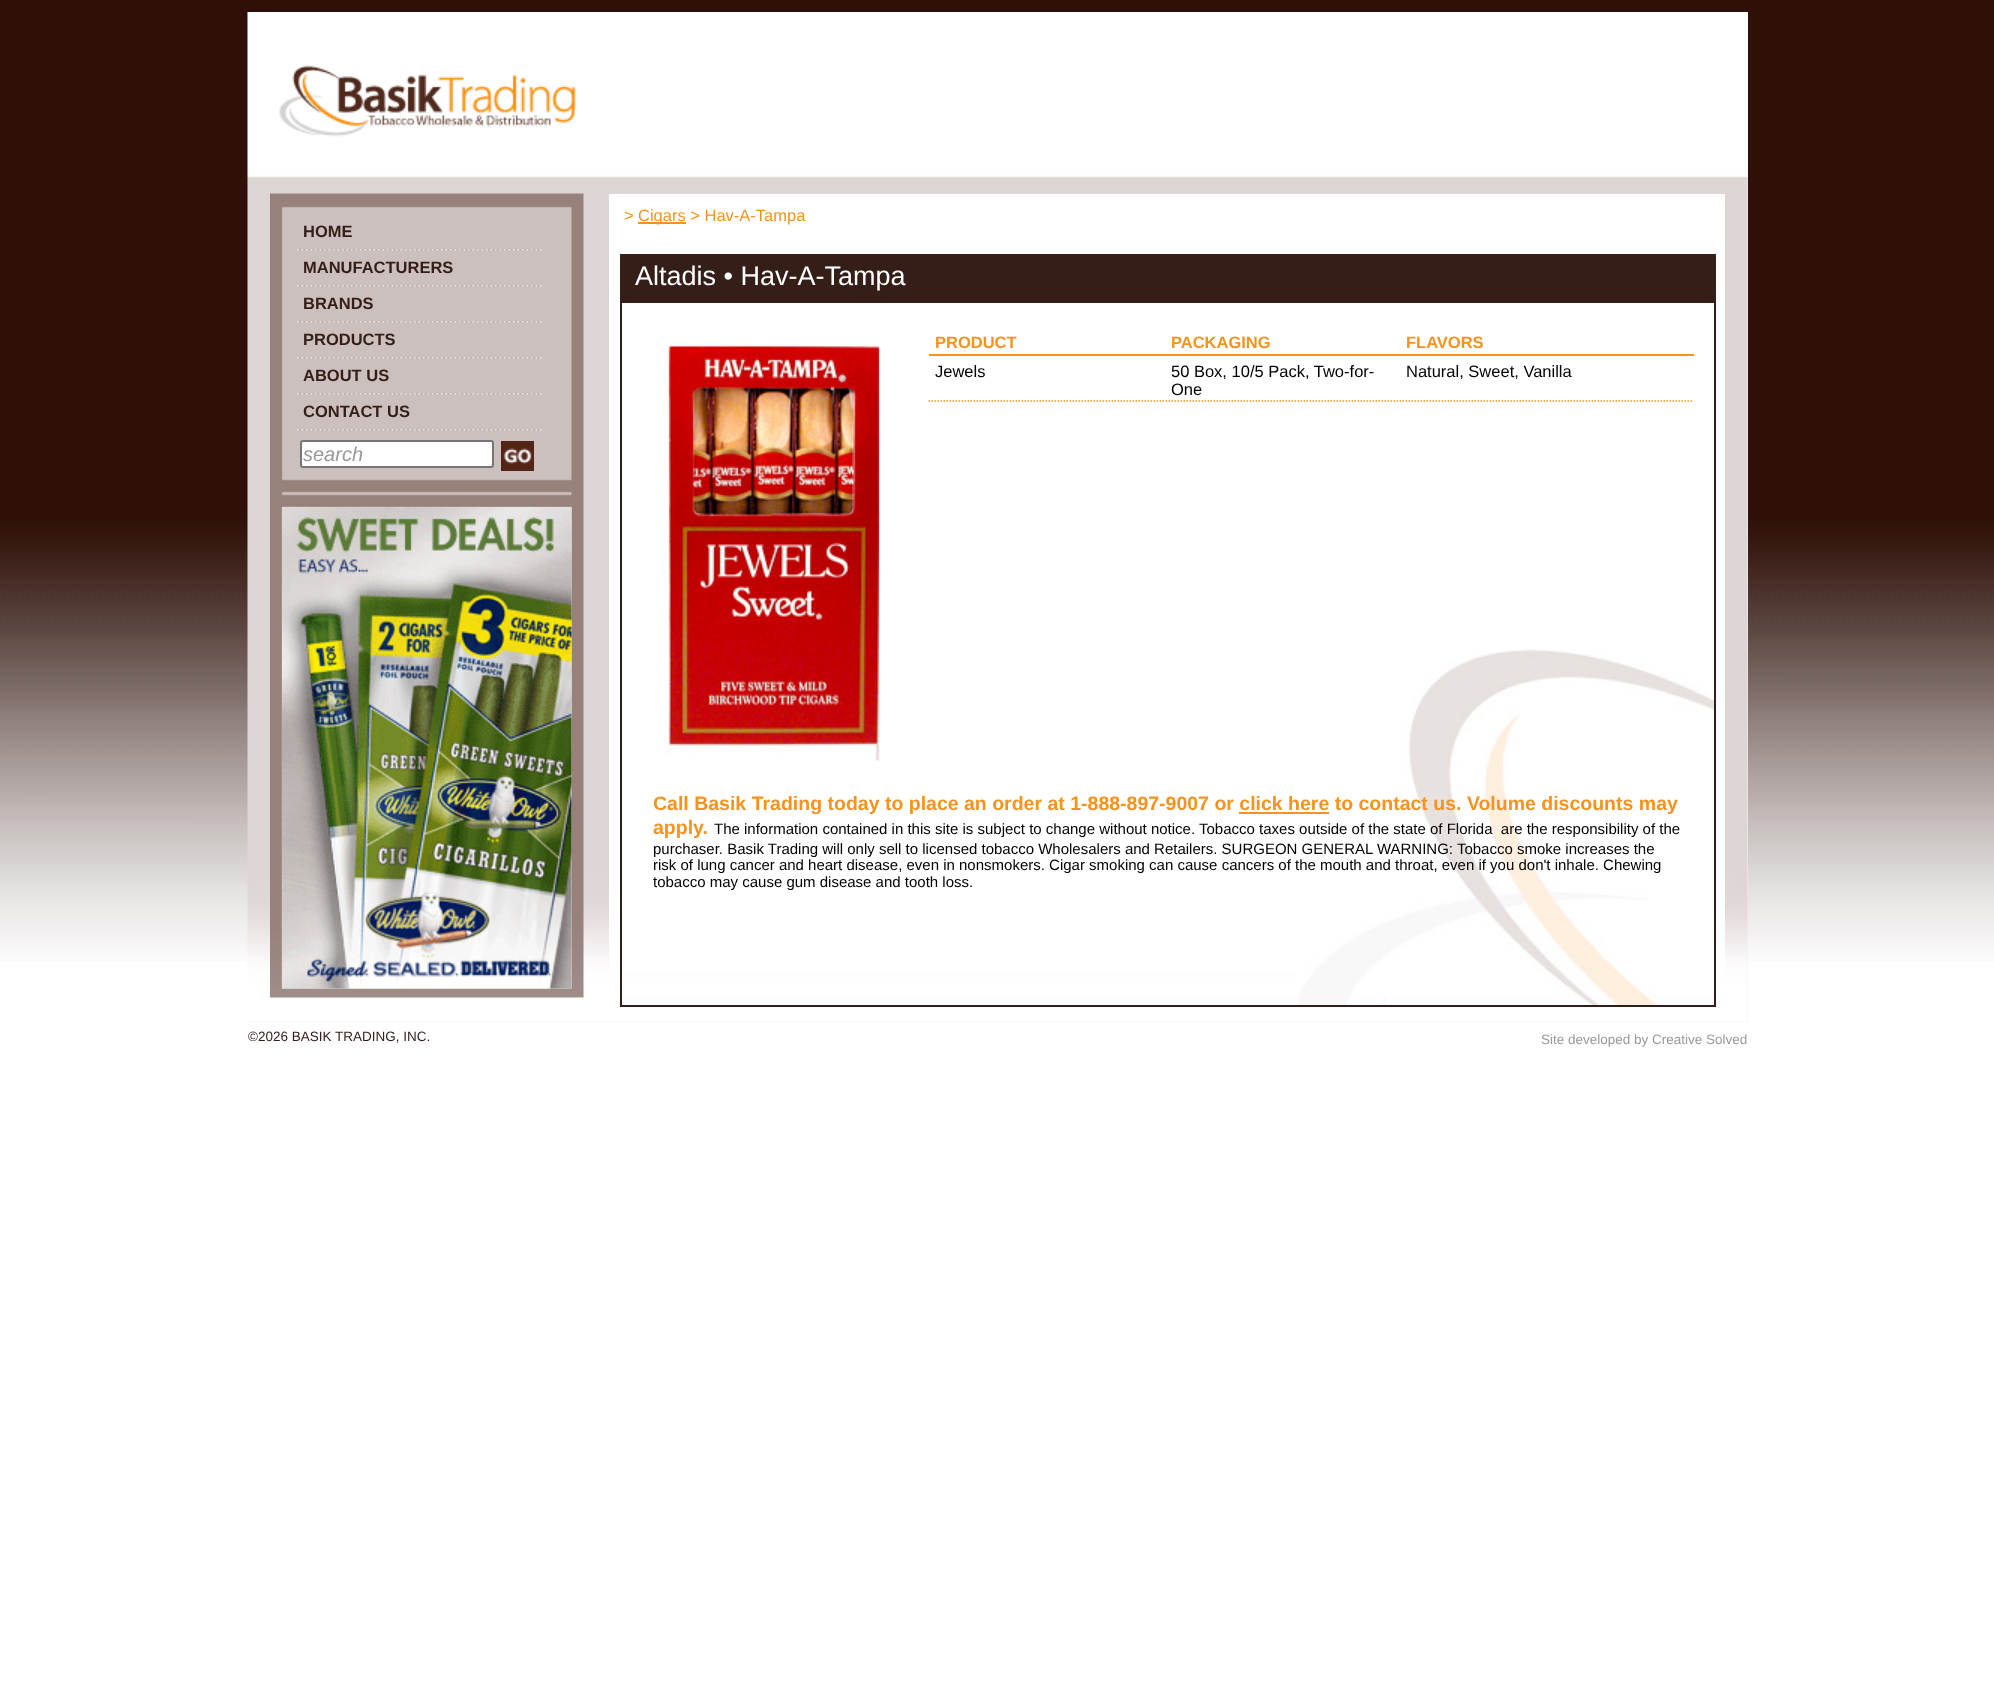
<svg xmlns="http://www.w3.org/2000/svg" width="1994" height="1696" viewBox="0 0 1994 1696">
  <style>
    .t1 { font: bold 16.5px Liberation Sans; fill: #341e17; }
    .t2 { font: italic 20px Liberation Sans; fill: #999; }
    .t3 { font: 16.5px Liberation Sans; fill: #f6921e; }
    .t4 { font: 27px Liberation Sans; fill: #fff; }
    .t5 { font: bold 16.5px Liberation Sans; fill: #f6921e; }
    .t6 { font: 16.5px Liberation Sans; fill: #000; }
    .t7 { font: bold 19.5px Liberation Sans; fill: #f6921e; }
    .t8 { font: 15px Liberation Sans; fill: #000; }
    .t9 { font: 13.5px Liberation Sans; fill: #341e17; }
    .t10 { font: 13.5px Liberation Sans; fill: #999; }
  </style>
  <rect width="100%" height="100%" fill="#fff"/>
  <image x="0" y="0" width="1994" height="961" href="images/1.png"/>
  <rect x="248" y="12" width="1500" height="1010" fill="#f2f1ee"/>
  <image x="247" y="12" width="1501" height="1010" href="images/2.png"/>
  <image x="279" y="65" width="298" height="72" href="images/3.png"/>
  <image x="270" y="193" width="314" height="805" href="images/4.png"/>
  <image x="297" y="249" width="245" height="2" href="images/5.png"/>
  <text x="303" y="237" class="t1">HOME</text>
  <image x="297" y="285" width="245" height="2" href="images/5.png"/>
  <text x="303" y="273" class="t1">MANUFACTURERS</text>
  <image x="297" y="321" width="245" height="2" href="images/5.png"/>
  <text x="303" y="309" class="t1">BRANDS</text>
  <image x="297" y="357" width="245" height="2" href="images/5.png"/>
  <text x="303" y="345" class="t1">PRODUCTS</text>
  <image x="297" y="393" width="245" height="2" href="images/5.png"/>
  <text x="303" y="381" class="t1">ABOUT US</text>
  <image x="297" y="429" width="245" height="2" href="images/5.png"/>
  <text x="303" y="417" class="t1">CONTACT US</text>
  <rect x="301" y="441" width="192" height="26" rx="2" fill="#fff" stroke="#767676" stroke-width="2"/>
  <text x="303" y="461" class="t2">search</text>
  <image x="501" y="441" width="33" height="30" href="images/6.png"/>
  <image x="282" y="507" width="290" height="482" href="images/7.png"/>
  <rect x="609" y="194" width="1116" height="779" fill="#fff"/>
  <text x="624" y="221" class="t3">&gt;</text>
  <rect x="638" y="222" width="48" height="2" fill="#f6921e"/>
  <text x="638" y="221" class="t3">Cigars &gt; Hav-A-Tampa</text>
  <image x="1297" y="649" width="417" height="356" href="images/8.png"/>
  <rect x="621" y="255" width="1094" height="751" fill="none" stroke="#341e17" stroke-width="2"/>
  <rect x="622" y="256" width="1092" height="47" fill="#341e17"/>
  <text x="635" y="285" class="t4">Altadis • Hav-A-Tampa</text>
  <image x="663" y="345" width="217" height="416" href="images/9.png"/>
  <rect x="929" y="354" width="765" height="2" fill="#f6921e"/>
  <text x="935" y="348" class="t5">PRODUCT</text>
  <text x="1171" y="348" class="t5">PACKAGING</text>
  <text x="1406" y="348" class="t5">FLAVORS</text>
  <path d="M928.5 401H1693.5" fill="none" stroke="#f6921e" stroke-width="1.5" stroke-dasharray="1.5 1.5"/>
  <text x="935" y="377" class="t6">Jewels</text>
  <text x="1171" y="377" class="t6">50 Box, 10/5 Pack, Two-for-</text>
  <text x="1171" y="395" class="t6">One</text>
  <text x="1406" y="377" class="t6">Natural, Sweet, Vanilla</text>
  <text x="653" y="810" class="t7">Call Basik Trading today to place an order at 1-888-897-9007 or click here to contact us. Volume discounts may</text>
  <rect x="1239" y="812" width="90" height="2" fill="#f6921e"/>
  <text x="653" y="834" class="t7">apply.</text>
  <text x="714" y="834" class="t8" xml:space="preserve">The information contained in this site is subject to change without notice. Tobacco taxes outside of the state of Florida  are the responsibility of the</text>
  <text x="653" y="854" class="t8">purchaser. Basik Trading will only sell to licensed tobacco Wholesalers and Retailers. SURGEON GENERAL WARNING: Tobacco smoke increases the</text>
  <text x="653" y="870" class="t8">risk of lung cancer and heart disease, even in nonsmokers. Cigar smoking can cause cancers of the mouth and throat, even if you don't inhale. Chewing</text>
  <text x="653" y="887" class="t8">tobacco may cause gum disease and tooth loss.</text>
  <text x="248" y="1041" class="t9">©2026 BASIK TRADING, INC.</text>
  <text x="1541" y="1044" class="t10">Site developed by Creative Solved</text>
</svg>
